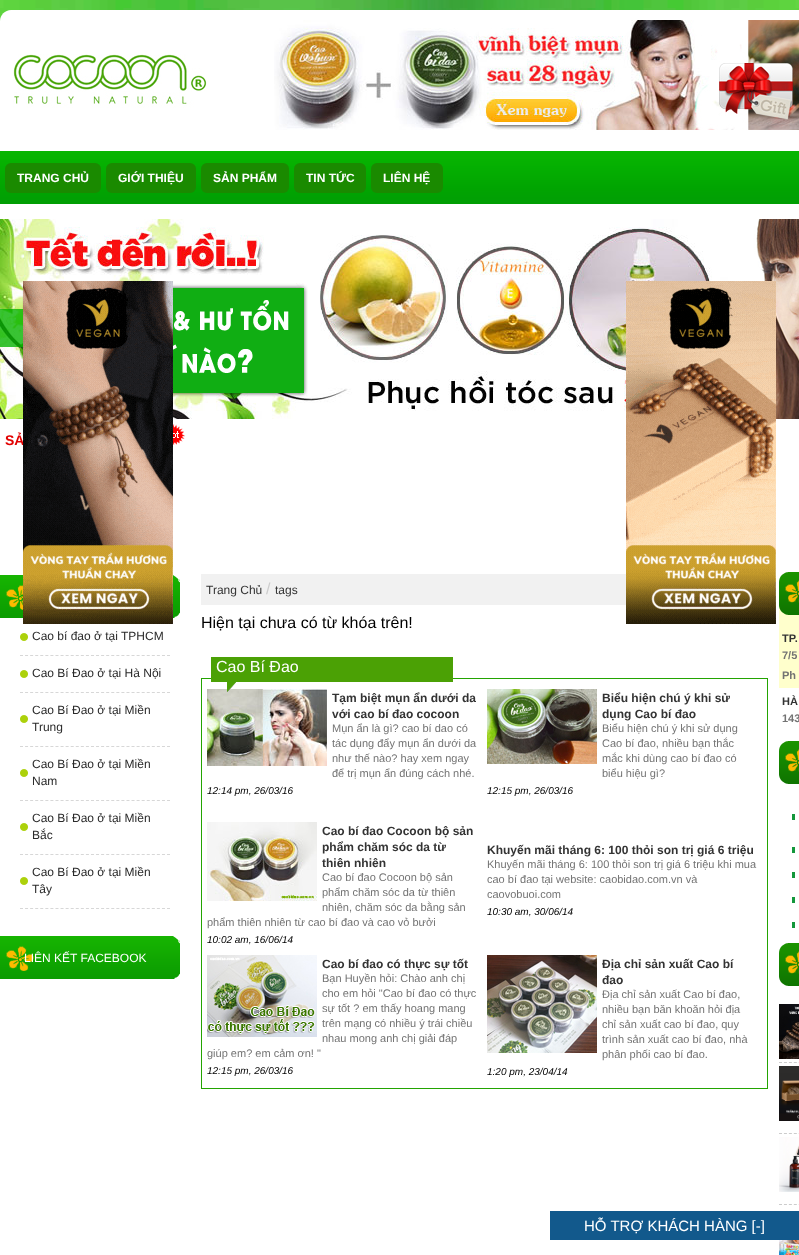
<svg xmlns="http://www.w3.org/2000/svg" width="799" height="1255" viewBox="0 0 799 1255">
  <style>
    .t1 { font: bold 12px Liberation Sans; fill: #fff; }
    .t2 { font: bold 14px Liberation Sans; fill: #e20000; }
    .t3 { font: 12px Liberation Sans; fill: #2b2b2b; }
    .t4 { font: 12px Liberation Sans; fill: #fff; }
    .t5 { font: 12px Liberation Sans; fill: #333; }
    .t6 { font: 16px Liberation Sans; fill: #ccc; }
    .t7 { font: 16px Liberation Sans; fill: #000; }
    .t8 { font: 16px Liberation Sans; fill: #fff; }
    .t9 { font: bold 12px Liberation Sans; fill: #333; }
    .t10 { font: 11px Liberation Sans; fill: #737373; }
    .t11 { font: italic 10px Liberation Sans; fill: #000; }
    .t12 { font: bold 11px Liberation Sans; fill: #333; }
    .t13 { font: bold 11px Liberation Sans; fill: #737373; }
    .t14 { font: 15px Liberation Sans; fill: #fff; }
  </style>
  <rect width="100%" height="100%" fill="#fff"/>
  <image x="0" y="0" width="799" height="21" href="images/1.png"/>
  <path d="M11 10H799C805 10 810 15 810 21V133H0V21C0 15 5 10 11 10Z" fill="#fff"/>
  <image x="13" y="54" width="194" height="54" href="images/2.png"/>
  <image x="274" y="20" width="525" height="110" href="images/3.png"/>
  <image x="0" y="151" width="799" height="53" href="images/4.png"/>
  <rect x="5" y="163" width="96" height="30" rx="6" fill="#1a8a00"/>
  <text x="17" y="182" class="t1">TRANG CHỦ</text>
  <rect x="106" y="163" width="90" height="30" rx="6" fill="#1a8a00"/>
  <text x="118" y="182" class="t1">GIỚI THIỆU</text>
  <rect x="201" y="163" width="88" height="30" rx="6" fill="#1a8a00"/>
  <text x="213" y="182" class="t1">SẢN PHẨM</text>
  <rect x="294" y="163" width="72" height="30" rx="6" fill="#1a8a00"/>
  <text x="306" y="182" class="t1">TIN TỨC</text>
  <rect x="371" y="163" width="72" height="30" rx="6" fill="#1a8a00"/>
  <text x="383" y="182" class="t1">LIÊN HỆ</text>
  <image x="0" y="219" width="799" height="200" href="images/7.png"/>
  <text x="5" y="445" class="t2">SẢ</text>
  <image x="0" y="575" width="180" height="43" href="images/9.png"/>
  <image x="23" y="281" width="150" height="343" href="images/5.png"/>
  <image x="626" y="281" width="150" height="343" href="images/6.png"/>
  <rect x="0" y="309" width="23" height="38" fill="#08b401cc"/>
  <image x="173" y="424" width="12" height="21" href="images/8.png"/>
  <path d="M20 655.5H170" fill="none" stroke="#d7d7d7" stroke-dasharray="3 2.07"/>
  <image x="20" y="633" width="8" height="8" href="images/10.png"/>
  <text x="32" y="640" class="t3">Cao bí đao ở tại TPHCM</text>
  <path d="M20 692.5H170" fill="none" stroke="#d7d7d7" stroke-dasharray="3 2.07"/>
  <image x="20" y="670" width="8" height="8" href="images/10.png"/>
  <text x="32" y="677" class="t3">Cao Bí Đao ở tại Hà Nội</text>
  <path d="M20 746.5H170" fill="none" stroke="#d7d7d7" stroke-dasharray="3 2.07"/>
  <image x="20" y="715" width="8" height="8" href="images/10.png"/>
  <text x="32" y="714" class="t3">Cao Bí Đao ở tại Miền</text>
  <text x="32" y="731" class="t3">Trung</text>
  <path d="M20 800.5H170" fill="none" stroke="#d7d7d7" stroke-dasharray="3 2.07"/>
  <image x="20" y="769" width="8" height="8" href="images/10.png"/>
  <text x="32" y="768" class="t3">Cao Bí Đao ở tại Miền</text>
  <text x="32" y="785" class="t3">Nam</text>
  <path d="M20 854.5H170" fill="none" stroke="#d7d7d7" stroke-dasharray="3 2.07"/>
  <image x="20" y="823" width="8" height="8" href="images/10.png"/>
  <text x="32" y="822" class="t3">Cao Bí Đao ở tại Miền</text>
  <text x="32" y="839" class="t3">Bắc</text>
  <path d="M20 908.5H170" fill="none" stroke="#d7d7d7" stroke-dasharray="3 2.07"/>
  <image x="20" y="877" width="8" height="8" href="images/10.png"/>
  <text x="32" y="876" class="t3">Cao Bí Đao ở tại Miền</text>
  <text x="32" y="893" class="t3">Tây</text>
  <image x="0" y="936" width="180" height="43" href="images/9.png"/>
  <text x="24" y="962" class="t4">LIÊN KẾT FACEBOOK</text>
  <rect x="201" y="574" width="425" height="31" fill="#f1f1f1"/>
  <text x="206" y="594" class="t5">Trang Chủ</text>
  <text x="266" y="594" class="t6">/</text>
  <text x="275" y="594" class="t5">tags</text>
  <text x="201" y="628" class="t7">Hiện tại chưa có từ khóa trên!</text>
  <rect x="201.5" y="678.5" width="566" height="410" fill="none" stroke="#23a401"/>
  <image x="207" y="689" width="120" height="77" href="images/12.png"/>
  <image x="211" y="657" width="242" height="35" href="images/11.png"/>
  <text x="216" y="672" class="t8">Cao Bí Đao</text>
  <text x="332" y="702" class="t9">Tạm biệt mụn ẩn dưới da</text>
  <text x="332" y="718" class="t9">với cao bí đao cocoon</text>
  <text x="332" y="732" class="t10">Mụn ẩn là gì? cao bí dao có</text>
  <text x="332" y="747" class="t10">tác dụng đẩy mụn ẩn dưới da</text>
  <text x="332" y="762" class="t10">như thế nào? hay xem ngay</text>
  <text x="332" y="777" class="t10">để trị mụn ẩn đúng cách nhé.</text>
  <text x="207" y="794" class="t11">12:14 pm, 26/03/16</text>
  <image x="487" y="689" width="110" height="75" href="images/13.png"/>
  <text x="602" y="702" class="t9">Biểu hiện chú ý khi sử</text>
  <text x="602" y="718" class="t9">dụng Cao bí đao</text>
  <text x="602" y="732" class="t10">Biểu hiện chú ý khi sử dụng</text>
  <text x="602" y="747" class="t10">Cao bí đao, nhiều bạn thắc</text>
  <text x="602" y="762" class="t10">mắc khi dùng cao bí đao có</text>
  <text x="602" y="777" class="t10">biểu hiệu gì?</text>
  <text x="487" y="794" class="t11">12:15 pm, 26/03/16</text>
  <image x="207" y="822" width="110" height="79" href="images/14.png"/>
  <text x="322" y="835" class="t9">Cao bí đao Cocoon bộ sản</text>
  <text x="322" y="851" class="t9">phẩm chăm sóc da từ</text>
  <text x="322" y="867" class="t9">thiên nhiên</text>
  <text x="322" y="881" class="t10">Cao bí đao Cocoon bộ sản</text>
  <text x="322" y="896" class="t10">phẩm chăm sóc da từ thiên</text>
  <text x="322" y="911" class="t10">nhiên, chăm sóc da bằng sản</text>
  <text x="207" y="926" class="t10">phẩm thiên nhiên từ cao bí đao và cao vỏ bưởi</text>
  <text x="207" y="943" class="t11">10:02 am, 16/06/14</text>
  <text x="487" y="854" class="t9">Khuyến mãi tháng 6: 100 thỏi son trị giá 6 triệu</text>
  <text x="487" y="868" class="t10">Khuyến mãi tháng 6: 100 thỏi son trị giá 6 triệu khi mua</text>
  <text x="487" y="883" class="t10">cao bí đao tại website: caobidao.com.vn và</text>
  <text x="487" y="898" class="t10">caovobuoi.com</text>
  <text x="487" y="915" class="t11">10:30 am, 30/06/14</text>
  <image x="207" y="955" width="110" height="82" href="images/15.png"/>
  <text x="322" y="968" class="t9">Cao bí đao có thực sự tốt</text>
  <text x="322" y="982" class="t10">Bạn Huyền hỏi: Chào anh chị</text>
  <text x="322" y="997" class="t10">cho em hỏi "Cao bí đao có thực</text>
  <text x="322" y="1012" class="t10">sự tốt ? em thấy hoang mang</text>
  <text x="322" y="1027" class="t10">trên mạng có nhiều ý trái chiều</text>
  <text x="322" y="1042" class="t10">nhau mong anh chị giải đáp</text>
  <text x="207" y="1057" class="t10">giúp em? em cảm ơn! "</text>
  <text x="207" y="1074" class="t11">12:15 pm, 26/03/16</text>
  <image x="487" y="955" width="110" height="98" href="images/16.png"/>
  <text x="602" y="968" class="t9">Địa chỉ sản xuất Cao bí</text>
  <text x="602" y="984" class="t9">đao</text>
  <text x="602" y="998" class="t10">Địa chỉ sản xuất Cao bí đao,</text>
  <text x="602" y="1013" class="t10">nhiều bạn băn khoăn hỏi địa</text>
  <text x="602" y="1028" class="t10">chỉ sản xuất cao bí đao, quy</text>
  <text x="602" y="1043" class="t10">trình sản xuất cao bí đao, nhà</text>
  <text x="602" y="1058" class="t10">phân phối cao bí đao.</text>
  <text x="487" y="1075" class="t11">1:20 pm, 23/04/14</text>
  <rect x="779" y="605" width="20" height="83" fill="#ffc"/>
  <image x="779" y="572" width="20" height="43" href="images/17.png"/>
  <text x="782" y="642" class="t12">TP.</text>
  <text x="782" y="659" class="t13">7/5</text>
  <text x="782" y="679" class="t13">Ph</text>
  <text x="782" y="705" class="t12">HÀ</text>
  <text x="782" y="722" class="t13">143</text>
  <image x="779" y="741" width="20" height="43" href="images/18.png"/>
  <rect x="792" y="814" width="3" height="6" fill="#13973b"/>
  <rect x="792" y="847" width="3" height="6" fill="#13973b"/>
  <rect x="792" y="872" width="3" height="6" fill="#13973b"/>
  <rect x="792" y="897" width="3" height="6" fill="#13973b"/>
  <rect x="792" y="922" width="3" height="6" fill="#13973b"/>
  <image x="779" y="943" width="20" height="43" href="images/18.png"/>
  <image x="779" y="1004" width="20" height="55" href="images/19.png"/>
  <path d="M779 1062.5H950" fill="none" stroke="#ccc" stroke-dasharray="3 1.94"/>
  <image x="779" y="1066" width="20" height="55" href="images/20.png"/>
  <path d="M779 1133.5H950" fill="none" stroke="#ccc" stroke-dasharray="3 1.94"/>
  <image x="779" y="1137" width="20" height="55" href="images/21.png"/>
  <path d="M779 1204.5H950" fill="none" stroke="#ccc" stroke-dasharray="3 1.94"/>
  <image x="779" y="1240" width="20" height="15" href="images/22.png"/>
  <rect x="550" y="1211" width="249" height="29" fill="#12598c"/>
  <text x="584" y="1231" class="t14">HỖ TRỢ KHÁCH HÀNG [-]</text>
</svg>
